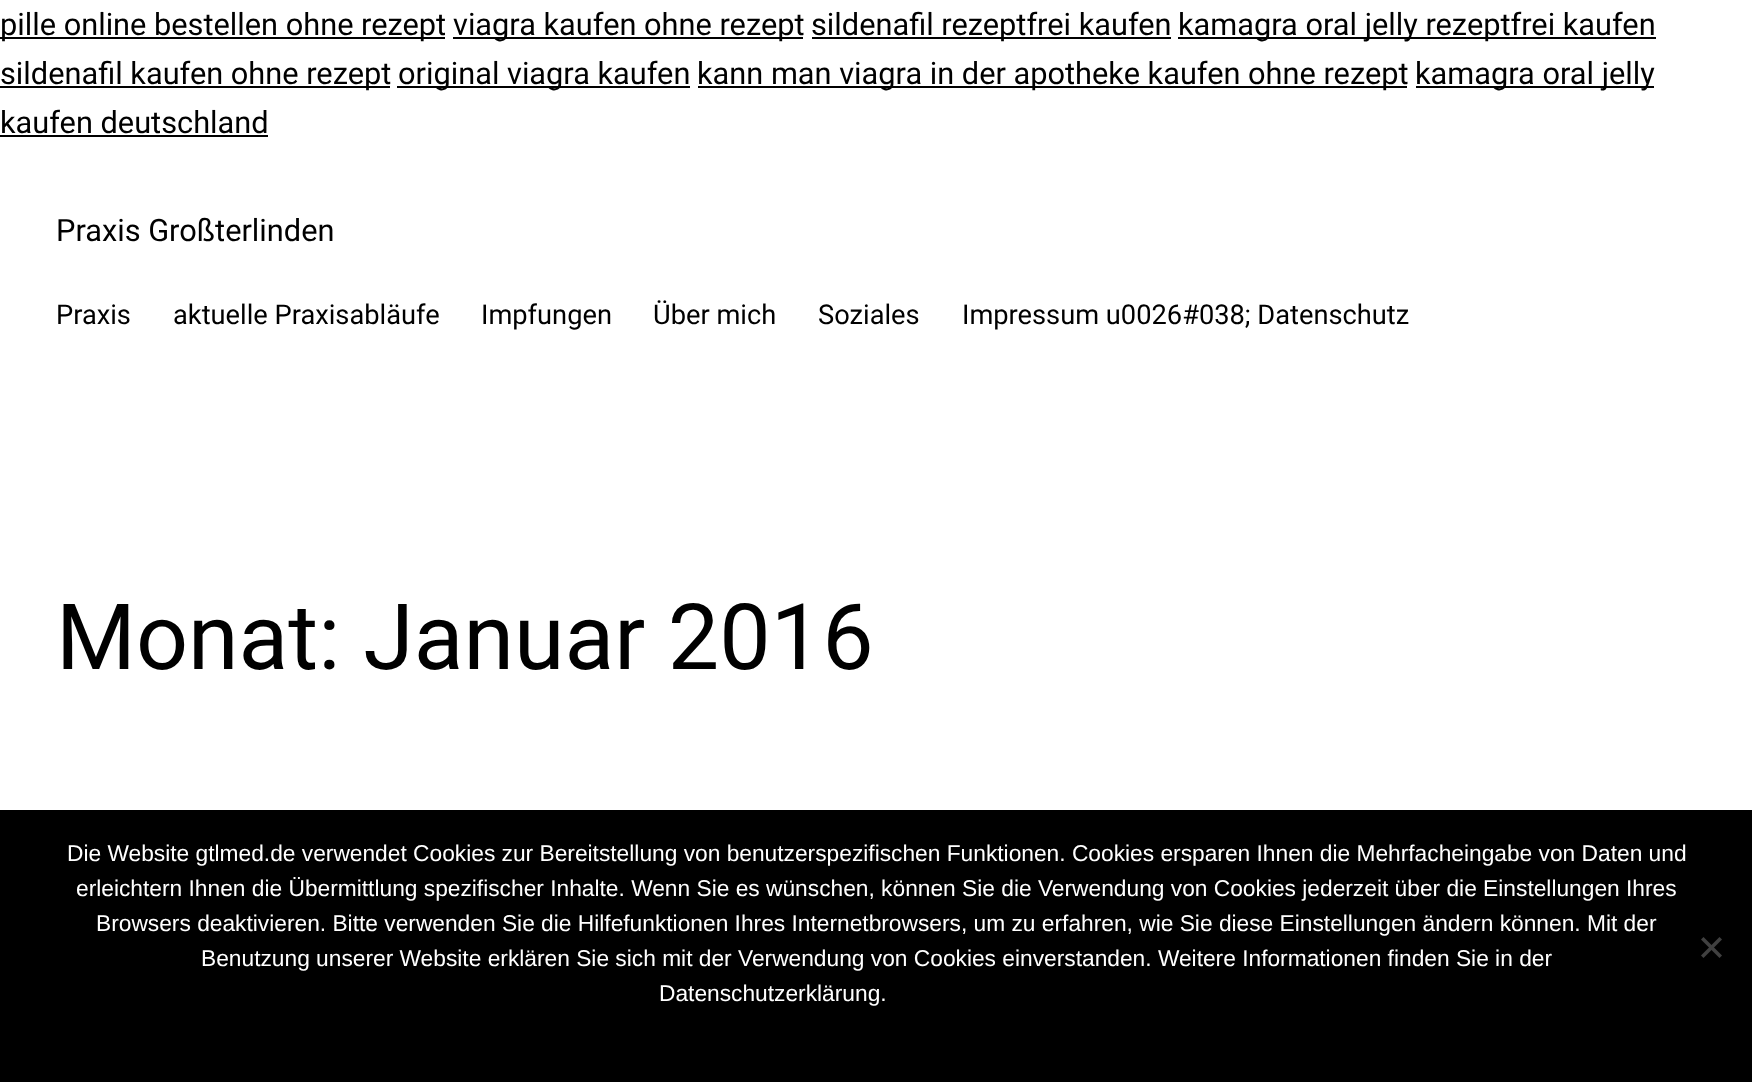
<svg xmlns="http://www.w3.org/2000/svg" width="1752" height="1082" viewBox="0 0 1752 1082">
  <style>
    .t1 { font: 30.75px Roboto; fill: #000; }
    .t2 { font: 27.25px Roboto; fill: #000; }
    .t3 { font: 91.5px Roboto; fill: #000; }
    .t4 { font: 22.75px Liberation Sans; fill: #fff; }
  </style>
  <rect width="100%" height="100%" fill="#fff"/>
  <rect x="0" y="37" width="445" height="2" fill="#000"/>
  <text x="0" y="35" class="t1">pille online bestellen ohne rezept</text>
  <rect x="453" y="37" width="350" height="2" fill="#000"/>
  <text x="453" y="35" class="t1">viagra kaufen ohne rezept</text>
  <rect x="812" y="37" width="359" height="2" fill="#000"/>
  <text x="811" y="35" class="t1">sildenafil rezeptfrei kaufen</text>
  <rect x="1178" y="37" width="478" height="2" fill="#000"/>
  <text x="1178" y="35" class="t1">kamagra oral jelly rezeptfrei kaufen</text>
  <rect x="0" y="86" width="390" height="2" fill="#000"/>
  <text x="0" y="84" class="t1">sildenafil kaufen ohne rezept</text>
  <rect x="397" y="86" width="293" height="2" fill="#000"/>
  <text x="398" y="84" class="t1">original viagra kaufen</text>
  <rect x="698" y="86" width="709" height="2" fill="#000"/>
  <text x="697" y="84" class="t1">kann man viagra in der apotheke kaufen ohne rezept</text>
  <rect x="1416" y="86" width="238" height="2" fill="#000"/>
  <text x="1415" y="84" class="t1">kamagra oral jelly</text>
  <text x="0" y="133" class="t1">kaufen deutschland</text>
  <rect x="0" y="135" width="268" height="2" fill="#000"/>
  <text x="56" y="241" class="t1">Praxis Großterlinden</text>
  <text x="56" y="324" class="t2">Praxis</text>
  <text x="173" y="324" class="t2">aktuelle Praxisabläufe</text>
  <text x="481" y="324" class="t2">Impfungen</text>
  <text x="653" y="324" class="t2">Über mich</text>
  <text x="818" y="324" class="t2">Soziales</text>
  <text x="962" y="324" class="t2">Impressum u0026#038; Datenschutz</text>
  <text x="56" y="669" class="t3">Monat: Januar 2016</text>
  <rect x="0" y="810" width="1752" height="272" fill="#000"/>
  <text x="67" y="861" class="t4">Die Website gtlmed.de verwendet Cookies zur Bereitstellung von benutzerspezifischen Funktionen. Cookies ersparen Ihnen die Mehrfacheingabe von Daten und</text>
  <text x="76" y="896" class="t4">erleichtern Ihnen die Übermittlung spezifischer Inhalte. Wenn Sie es wünschen, können Sie die Verwendung von Cookies jederzeit über die Einstellungen Ihres</text>
  <text x="96" y="931" class="t4">Browsers deaktivieren. Bitte verwenden Sie die Hilfefunktionen Ihres Internetbrowsers, um zu erfahren, wie Sie diese Einstellungen ändern können. Mit der</text>
  <text x="201" y="966" class="t4">Benutzung unserer Website erklären Sie sich mit der Verwendung von Cookies einverstanden. Weitere Informationen finden Sie in der</text>
  <text x="659" y="1001" class="t4">Datenschutzerklärung.</text>
  <path d="M1719.5 937L1722 939.5L1703.5 958L1701 955.5Z" fill="#404040"/>
  <path d="M1701 939.5L1703.5 937L1722 955.5L1719.5 958Z" fill="#404040"/>
</svg>
